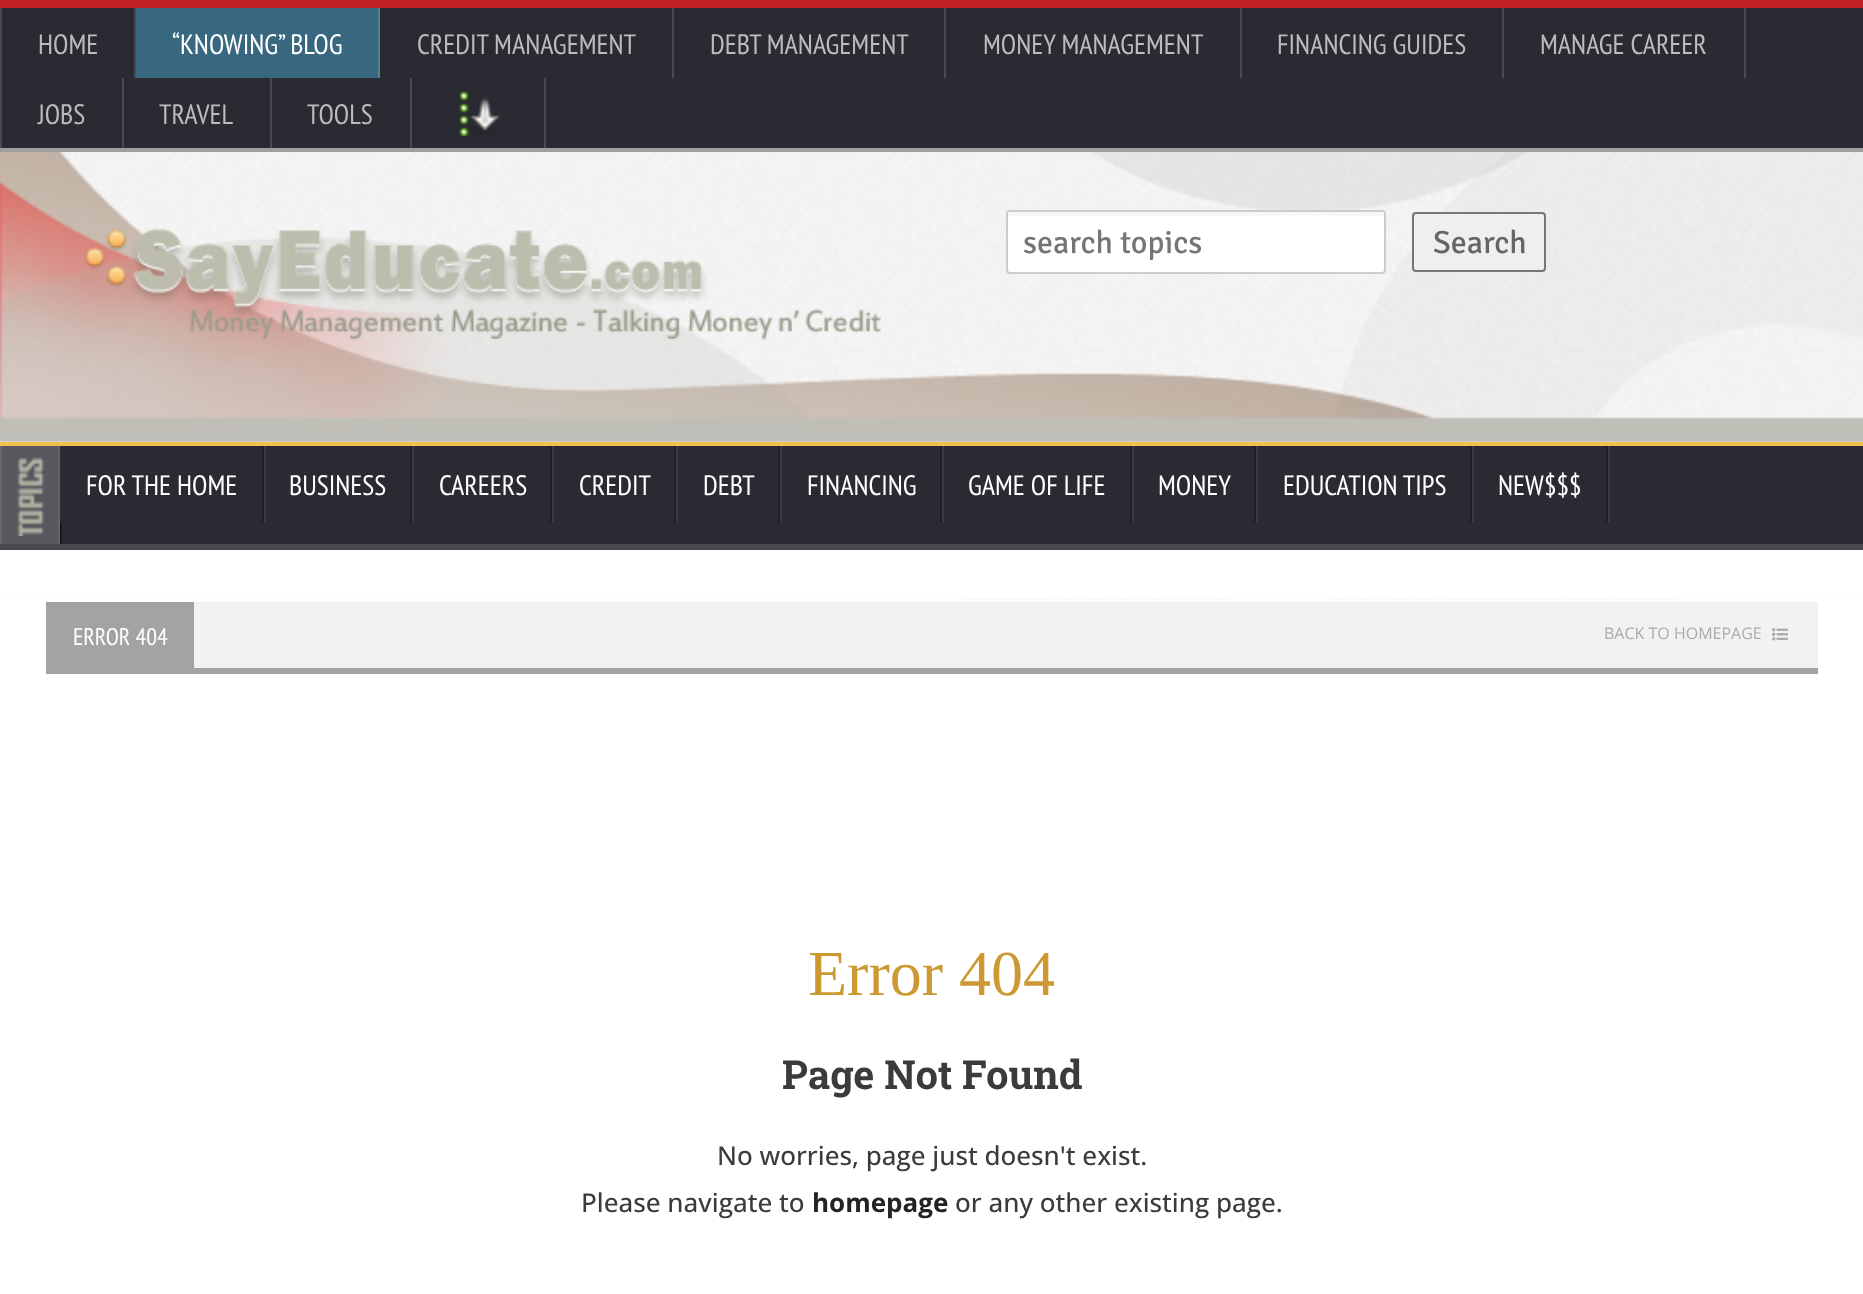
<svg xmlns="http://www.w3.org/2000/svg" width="1863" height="1294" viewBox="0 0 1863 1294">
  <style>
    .t1 { font: 28px PT Sans Narrow; fill: #bcbcbc; }
    .t2 { font: 28px PT Sans Narrow; fill: #fff; }
    .t3 { font: 300 32px Signika; fill: #757575; }
    .t4 { font: 300 32px Signika; fill: #666; }
    .t5 { font: 24px PT Sans Narrow; fill: #fff; }
    .t6 { font: 16px Open Sans; fill: #aaa; }
    .t7 { font: 64px Liberation Serif; fill: #c93; }
    .t8 { font: bold 40px Roboto Slab; fill: #3b3b3b; }
    .t9 { font: 500 26px Open Sans; fill: #3b3b3b; }
    .t10 { font: bold 26px Open Sans; fill: #232323; }
  </style>
  <rect width="100%" height="100%" fill="#fff"/>
  <image x="0" y="152" width="1863" height="448" href="images/1.png"/>
  <rect x="2" y="8" width="1861" height="140" fill="#292a32"/>
  <rect x="0" y="0" width="1863" height="8" fill="#c12026"/>
  <rect x="0" y="148" width="1863" height="4" fill="#9f9f9f"/>
  <rect x="0" y="8" width="2" height="140" fill="#494a51"/>
  <rect x="134" y="8" width="2" height="70" fill="#494a51"/>
  <text x="38" y="54" class="t1">HOME</text>
  <rect x="136" y="8" width="242" height="70" fill="#386780"/>
  <rect x="378" y="8" width="2" height="70" fill="#567e93"/>
  <text x="172" y="54" class="t2">“KNOWING” BLOG</text>
  <rect x="672" y="8" width="2" height="70" fill="#494a51"/>
  <text x="417" y="54" class="t1">CREDIT MANAGEMENT</text>
  <rect x="944" y="8" width="2" height="70" fill="#494a51"/>
  <text x="710" y="54" class="t1">DEBT MANAGEMENT</text>
  <rect x="1240" y="8" width="2" height="70" fill="#494a51"/>
  <text x="983" y="54" class="t1">MONEY MANAGEMENT</text>
  <rect x="1502" y="8" width="2" height="70" fill="#494a51"/>
  <text x="1277" y="54" class="t1">FINANCING GUIDES</text>
  <rect x="1744" y="8" width="2" height="70" fill="#494a51"/>
  <text x="1540" y="54" class="t1">MANAGE CAREER</text>
  <rect x="122" y="78" width="2" height="70" fill="#494a51"/>
  <text x="38" y="124" class="t1">JOBS</text>
  <rect x="270" y="78" width="2" height="70" fill="#494a51"/>
  <text x="159" y="124" class="t1">TRAVEL</text>
  <rect x="410" y="78" width="2" height="70" fill="#494a51"/>
  <text x="307" y="124" class="t1">TOOLS</text>
  <rect x="544" y="78" width="2" height="70" fill="#494a51"/>
  <image x="459" y="92" width="42" height="44" href="images/2.png"/>
  <image x="84" y="228" width="797" height="113" href="images/3.png"/>
  <rect x="1006" y="210" width="380" height="64" rx="4" fill="#fff"/>
  <path d="M1010 216H1382C1383 216 1384 217 1384 218C1384 216 1385 213 1382 212H1009C1007 213 1008 216 1008 218C1008 217 1009 216 1010 216Z" fill="#f7f7f7"/>
  <rect x="1007" y="211" width="378" height="62" rx="3" fill="none" stroke="#ccc" stroke-width="2"/>
  <text x="1023" y="253" class="t3">search topics</text>
  <rect x="1413" y="213" width="132" height="58" rx="3" fill="#efefef" stroke="#767676" stroke-width="2"/>
  <text x="1433" y="253" class="t4">Search</text>
  <rect x="62" y="446" width="1801" height="98" fill="#292a32"/>
  <rect x="0" y="544" width="1863" height="6" fill="#494a51"/>
  <rect x="0" y="442" width="1863" height="4" fill="#f0c14b"/>
  <rect x="60" y="522" width="2" height="22" fill="#19191e"/>
  <rect x="2" y="446" width="56" height="98" fill="#494a51"/>
  <image x="17" y="457" width="28" height="79" href="images/4.png"/>
  <rect x="2" y="446" width="56" height="98" fill="#ffffff14"/>
  <rect x="58" y="446" width="2" height="98" fill="#63646a"/>
  <rect x="0" y="446" width="2" height="98" fill="#65666c"/>
  <rect x="262" y="446" width="2" height="76" fill="#1f2026"/>
  <rect x="60" y="446" width="2" height="76" fill="#2b2b30"/>
  <text x="86" y="495" class="t2">FOR THE HOME</text>
  <rect x="410" y="446" width="2" height="76" fill="#1f2026"/>
  <rect x="264" y="446" width="2" height="76" fill="#3a3b42"/>
  <text x="289" y="495" class="t2">BUSINESS</text>
  <rect x="550" y="446" width="2" height="76" fill="#1f2026"/>
  <rect x="412" y="446" width="2" height="76" fill="#3a3b42"/>
  <text x="439" y="495" class="t2">CAREERS</text>
  <rect x="674" y="446" width="2" height="76" fill="#1f2026"/>
  <rect x="552" y="446" width="2" height="76" fill="#3a3b42"/>
  <text x="579" y="495" class="t2">CREDIT</text>
  <rect x="778" y="446" width="2" height="76" fill="#1f2026"/>
  <rect x="676" y="446" width="2" height="76" fill="#3a3b42"/>
  <text x="703" y="495" class="t2">DEBT</text>
  <rect x="940" y="446" width="2" height="76" fill="#1f2026"/>
  <rect x="780" y="446" width="2" height="76" fill="#3a3b42"/>
  <text x="807" y="495" class="t2">FINANCING</text>
  <rect x="1130" y="446" width="2" height="76" fill="#1f2026"/>
  <rect x="942" y="446" width="2" height="76" fill="#3a3b42"/>
  <text x="968" y="495" class="t2">GAME OF LIFE</text>
  <rect x="1254" y="446" width="2" height="76" fill="#1f2026"/>
  <rect x="1132" y="446" width="2" height="76" fill="#3a3b42"/>
  <text x="1158" y="495" class="t2">MONEY</text>
  <rect x="1470" y="446" width="2" height="76" fill="#1f2026"/>
  <rect x="1256" y="446" width="2" height="76" fill="#3a3b42"/>
  <text x="1283" y="495" class="t2">EDUCATION TIPS</text>
  <rect x="1608" y="446" width="2" height="76" fill="#3a3b42"/>
  <rect x="1606" y="446" width="2" height="76" fill="#1f2026"/>
  <rect x="1472" y="446" width="2" height="76" fill="#3a3b42"/>
  <text x="1498" y="495" class="t2">NEW$$$</text>
  <rect x="194" y="602" width="1624" height="66" fill="#f2f2f2"/>
  <rect x="46" y="602" width="148" height="66" fill="#a3a3a6"/>
  <text x="73" y="645" class="t5">ERROR 404</text>
  <rect x="46" y="668" width="1772" height="6" fill="#a3a3a6"/>
  <text x="1604" y="639" class="t6">BACK TO HOMEPAGE</text>
  <image x="1772" y="628" width="16" height="13" href="images/5.png"/>
  <text x="808" y="995" class="t7">Error 404</text>
  <text x="782" y="1089" class="t8">Page Not Found</text>
  <text x="717" y="1165" class="t9">No worries, page just doesn't exist.</text>
  <text x="581" y="1212" class="t9">Please navigate to</text>
  <text x="812" y="1212" class="t10">homepage</text>
  <text x="955" y="1212" class="t9">or any other existing page.</text>
</svg>
